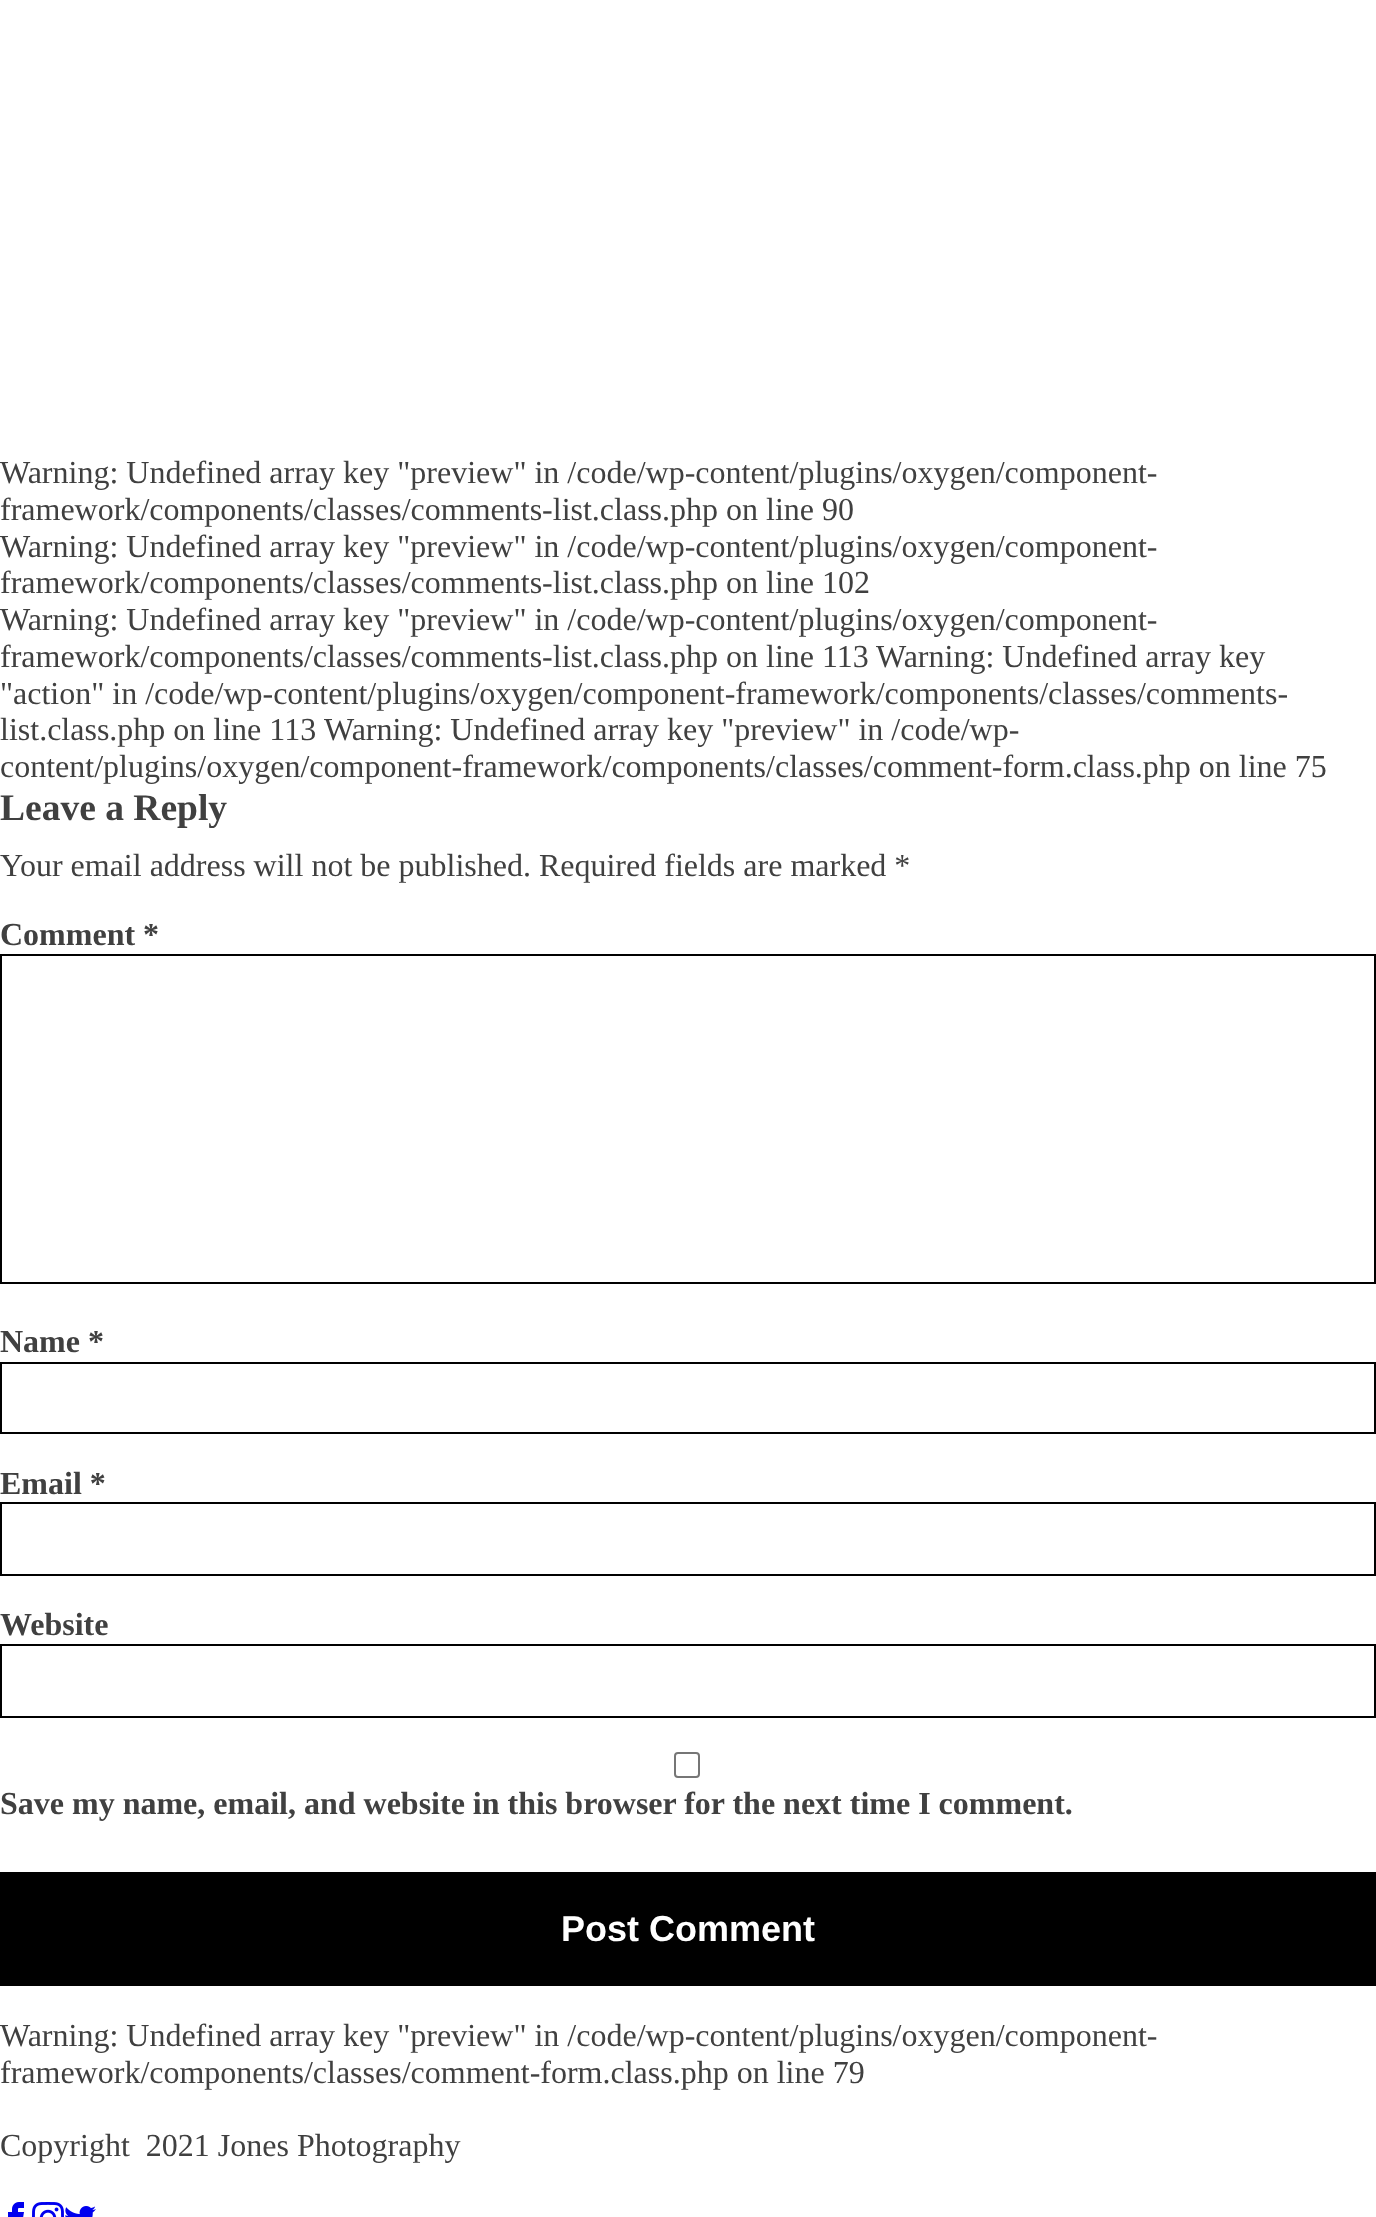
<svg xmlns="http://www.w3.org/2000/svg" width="1376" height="2217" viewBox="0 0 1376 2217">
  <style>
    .t1 { font: 32px Liberation Serif; fill: #404040; }
    .t2 { font: bold 37.5px Liberation Serif; fill: #404040; }
    .t3 { font: bold 32px Liberation Serif; fill: #404040; }
    .t4 { font: bold 36px Liberation Sans; fill: #fff; }
  </style>
  <rect width="100%" height="100%" fill="#fff"/>
  <text x="0" y="483" class="t1">Warning: Undefined array key "preview" in /code/wp-content/plugins/oxygen/component-</text>
  <text x="0" y="520" class="t1">framework/components/classes/comments-list.class.php on line 90</text>
  <text x="0" y="557" class="t1">Warning: Undefined array key "preview" in /code/wp-content/plugins/oxygen/component-</text>
  <text x="0" y="593" class="t1">framework/components/classes/comments-list.class.php on line 102</text>
  <text x="0" y="630" class="t1">Warning: Undefined array key "preview" in /code/wp-content/plugins/oxygen/component-</text>
  <text x="0" y="667" class="t1">framework/components/classes/comments-list.class.php on line 113</text>
  <text x="876" y="667" class="t1">Warning: Undefined array key</text>
  <text x="0" y="704" class="t1">"action" in /code/wp-content/plugins/oxygen/component-framework/components/classes/comments-</text>
  <text x="0" y="740" class="t1">list.class.php on line 113</text>
  <text x="324" y="740" class="t1">Warning: Undefined array key "preview" in /code/wp-</text>
  <text x="0" y="777" class="t1">content/plugins/oxygen/component-framework/components/classes/comment-form.class.php on line 75</text>
  <text x="0" y="820" class="t2">Leave a Reply</text>
  <text x="0" y="876" class="t1">Your email address will not be published. Required fields are marked *</text>
  <text x="0" y="945" class="t3">Comment *</text>
  <rect x="1" y="955" width="1374" height="328" fill="none" stroke="#000" stroke-width="2"/>
  <text x="0" y="1352" class="t3">Name *</text>
  <rect x="1" y="1363" width="1374" height="70" fill="none" stroke="#000" stroke-width="2"/>
  <text x="0" y="1494" class="t3">Email *</text>
  <rect x="1" y="1503" width="1374" height="72" fill="none" stroke="#000" stroke-width="2"/>
  <text x="0" y="1635" class="t3">Website</text>
  <rect x="1" y="1645" width="1374" height="72" fill="none" stroke="#000" stroke-width="2"/>
  <rect x="675" y="1753" width="24" height="24" rx="3" fill="none" stroke="#767676" stroke-width="2"/>
  <text x="0" y="1814" class="t3">Save my name, email, and website in this browser for the next time I comment.</text>
  <rect x="0" y="1872" width="1376" height="114" fill="#000"/>
  <text x="561" y="1941" class="t4">Post Comment</text>
  <text x="0" y="2046" class="t1">Warning: Undefined array key "preview" in /code/wp-content/plugins/oxygen/component-</text>
  <text x="0" y="2083" class="t1">framework/components/classes/comment-form.class.php on line 79</text>
  <text x="0" y="2156" class="t1" xml:space="preserve">Copyright  2021 Jones Photography</text>
  <image x="8" y="2202" width="16" height="15" href="images/1.png"/>
  <image x="32" y="2202" width="32" height="15" href="images/2.png"/>
  <image x="65" y="2206" width="31" height="11" href="images/3.png"/>
</svg>
